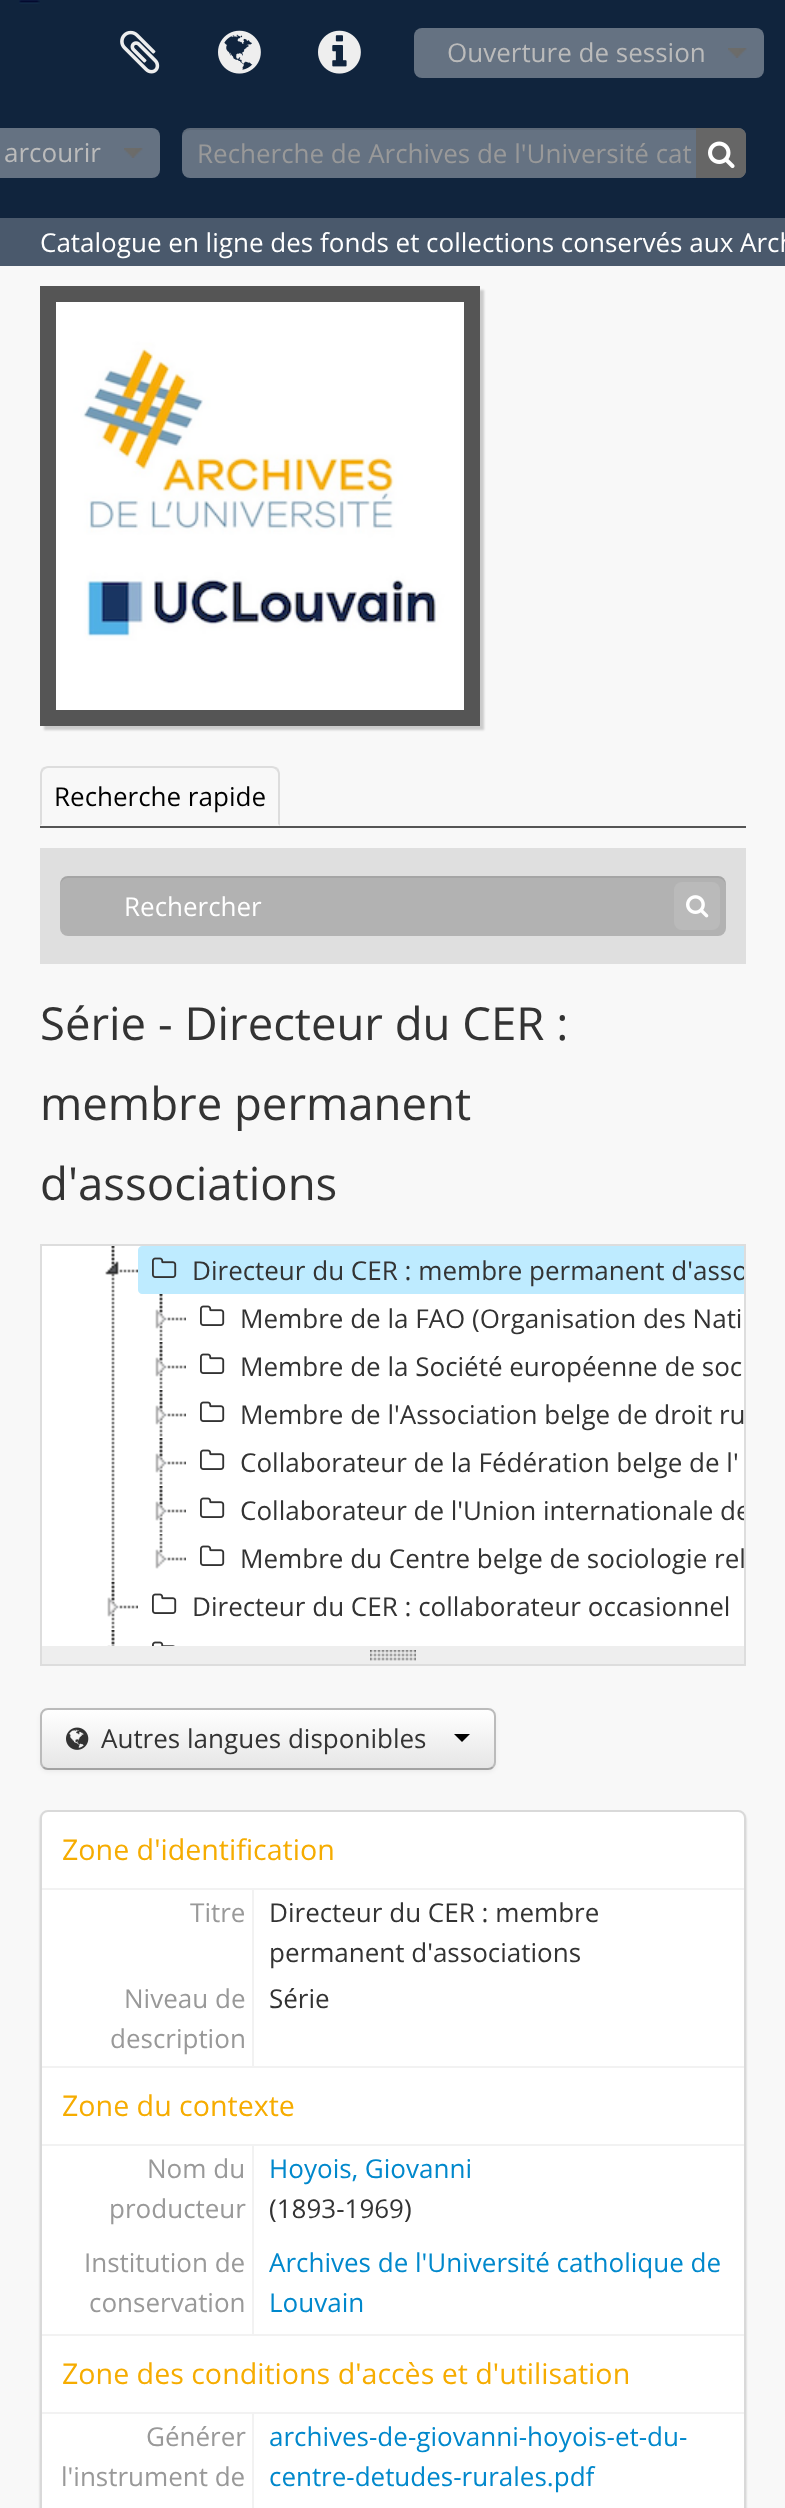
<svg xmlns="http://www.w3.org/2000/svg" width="785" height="2508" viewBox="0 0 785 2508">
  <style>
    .t1 { font: 26px Open Sans; fill: #bbb; }
    .t2 { font: 26px Open Sans; fill: #999; }
    .t3 { font: 26px Open Sans; fill: #fff; }
    .t4 { font: 26px Open Sans; fill: #000; }
    .t5 { font: 45.5px Open Sans; fill: #333; }
    .t6 { font: 26px Open Sans; fill: #333; }
    .t7 { font: 28.6px Open Sans; fill: #f6ac00; }
    .t8 { font: 26px Open Sans; fill: #08c; }
  </style>
  <defs>
    <clipPath id="clip1"><rect x="42" y="1246" width="702" height="400"/></clipPath>
    <clipPath id="clip2"><rect x="186" y="1486" width="558" height="48"/></clipPath>
    <clipPath id="clip3"><rect x="40" y="1708" width="456" height="62" rx="8"/></clipPath>
    <linearGradient id="g1" gradientUnits="userSpaceOnUse" x1="268" y1="1710" x2="268" y2="1768"><stop offset="0" stop-color="#fff"/><stop offset="1" stop-color="#e6e6e6"/></linearGradient>
  </defs>
  <rect width="100%" height="100%" fill="#f8f8f8"/>
  <rect x="0" y="0" width="785" height="218" fill="#10243d"/>
  <image x="19" y="0" width="21" height="4" href="images/1.png"/>
  <image x="120" y="30" width="40" height="44" href="images/2.png"/>
  <image x="218" y="30" width="43" height="44" href="images/3.png"/>
  <image x="318" y="30" width="43" height="44" href="images/4.png"/>
  <rect x="414" y="28" width="350" height="50" rx="8" fill="#657282"/>
  <image x="728" y="48" width="19" height="10" href="images/5.png"/>
  <text x="447" y="62" class="t1">Ouverture de session</text>
  <rect x="-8" y="128" width="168" height="50" rx="8" fill="#657282"/>
  <image x="124" y="148" width="19" height="10" href="images/5.png"/>
  <text x="4" y="162" class="t1">arcourir</text>
  <rect x="182" y="128" width="564" height="50" rx="8" fill="#657282"/>
  <path d="M190 130H738C742 130 746 134 746 138C746 133 744 128 738 128H190C184 128 182 133 182 138C182 134 186 130 190 130Z" fill="#00000012"/>
  <text x="197" y="163" class="t2">Recherche de Archives de l'Université cat</text>
  <path d="M696 128H738C742.5 128 746 131.5 746 136V170C746 174.5 742.5 178 738 178H696Z" fill="#666"/>
  <image x="708" y="141" width="27" height="28" href="images/6.png"/>
  <rect x="0" y="218" width="785" height="48" fill="#4a596c"/>
  <text x="40" y="252" class="t3">Catalogue en ligne des fonds et collections conservés aux Arch</text>
  <rect x="44" y="290" width="440" height="440" fill="#19191933" filter="blur(1px)"/>
  <rect x="40" y="286" width="440" height="440" fill="#555"/>
  <image x="56" y="302" width="408" height="408" href="images/7.png"/>
  <rect x="40" y="826" width="706" height="2" fill="#555"/>
  <path d="M48 766C46 766 44 767 42 768L44 770C45 769 46 768 48 768H272C274 768 275 769 276 770L278 768C276 767 274 766 272 766Z" fill="#ddd"/>
  <path d="M280 826V774C280 772 279 770 278 768L276 770C277 771 278 772 278 774V824Z" fill="#ddd"/>
  <path d="M40 826L42 824V774C42 772 43 771 44 770L42 768C41 770 40 772 40 774Z" fill="#ddd"/>
  <text x="54" y="806" class="t4">Recherche rapide</text>
  <rect x="40" y="848" width="706" height="116" fill="#dfdfdf"/>
  <rect x="60" y="876" width="666" height="60" rx="8" fill="#b2b2b2"/>
  <path d="M68 878H718C722 878 726 882 726 886C726 881 724 876 718 876H68C62 876 60 881 60 886C60 882 64 878 68 878Z" fill="#00000012"/>
  <text x="124" y="916" class="t3">Rechercher</text>
  <rect x="674" y="882" width="46" height="48" rx="8" fill="#bababa"/>
  <image x="686" y="895" width="23" height="23" href="images/8.png"/>
  <text x="40" y="1040" class="t5">Série - Directeur du CER :</text>
  <text x="40" y="1120" class="t5">membre permanent</text>
  <text x="40" y="1200" class="t5">d'associations</text>
  <rect x="41" y="1245" width="704" height="402" fill="none" stroke="#ddd" stroke-width="2"/>
  <rect x="42" y="1646" width="702" height="18" fill="#eee"/>
  <image x="370" y="1650" width="46" height="11" href="images/19.png"/>
  <rect x="41" y="1645" width="704" height="20" fill="none" stroke="#ddd" stroke-width="2"/>
  <rect x="42" y="1246" width="702" height="400" fill="#fff"/>
  <image x="111" y="1246" width="4" height="336" href="images/9.png"/>
  <image x="105" y="1246" width="33" height="29" href="images/10.png"/>
  <path d="M142 1246H744V1294H142C140 1294 138 1292 138 1290V1250C138 1248 140 1246 142 1246Z" fill="#beebff"/>
  <image x="152" y="1257" width="25" height="21" href="images/11.png"/>
  <g clip-path="url(#clip1)">
    <text x="192" y="1280" class="t6">Directeur du CER : membre permanent d'asso</text>
  </g>
  <image x="159" y="1294" width="4" height="47" href="images/12.png"/>
  <image x="155" y="1294" width="31" height="35" href="images/13.png"/>
  <image x="200" y="1305" width="25" height="21" href="images/14.png"/>
  <text x="240" y="1328" class="t6">Membre de la FAO (Organisation des Nati</text>
  <image x="159" y="1342" width="4" height="47" href="images/12.png"/>
  <image x="155" y="1342" width="31" height="35" href="images/13.png"/>
  <image x="200" y="1353" width="25" height="21" href="images/14.png"/>
  <text x="240" y="1376" class="t6">Membre de la Société européenne de soc</text>
  <image x="159" y="1390" width="4" height="47" href="images/12.png"/>
  <image x="155" y="1390" width="31" height="35" href="images/13.png"/>
  <image x="200" y="1401" width="25" height="21" href="images/14.png"/>
  <text x="240" y="1424" class="t6">Membre de l'Association belge de droit ru</text>
  <image x="159" y="1438" width="4" height="47" href="images/12.png"/>
  <image x="155" y="1438" width="31" height="35" href="images/13.png"/>
  <image x="200" y="1449" width="25" height="21" href="images/14.png"/>
  <text x="240" y="1472" class="t6">Collaborateur de la Fédération belge de l'</text>
  <image x="159" y="1486" width="4" height="47" href="images/12.png"/>
  <image x="155" y="1486" width="31" height="35" href="images/13.png"/>
  <image x="200" y="1497" width="25" height="21" href="images/14.png"/>
  <g clip-path="url(#clip2)">
    <text x="240" y="1520" class="t6">Collaborateur de l'Union internationale de</text>
  </g>
  <image x="155" y="1534" width="31" height="35" href="images/15.png"/>
  <image x="200" y="1545" width="25" height="21" href="images/14.png"/>
  <text x="240" y="1568" class="t6">Membre du Centre belge de sociologie rel</text>
  <image x="111" y="1582" width="4" height="47" href="images/12.png"/>
  <image x="107" y="1582" width="31" height="35" href="images/13.png"/>
  <image x="152" y="1593" width="25" height="21" href="images/14.png"/>
  <text x="192" y="1616" class="t6">Directeur du CER : collaborateur occasionnel</text>
  <image x="111" y="1630" width="4" height="16" href="images/16.png"/>
  <image x="107" y="1630" width="8" height="16" href="images/17.png"/>
  <image x="152" y="1641" width="23" height="5" href="images/18.png"/>
  <rect x="40" y="1710" width="456" height="62" rx="8" fill="#0000000d" filter="blur(2px)"/>
  <g clip-path="url(#clip3)">
    <rect x="40" y="1710" width="456" height="58" fill="url(#g1)"/>
  </g>
  <path d="M493 1767C491.5 1768.5 490 1769 488 1769H48C46 1769 44.5 1768.5 43 1767" fill="none" stroke="#a2a2a2" stroke-width="2"/>
  <path d="M43 1767C41.5 1765.5 41 1764 41 1762V1716C41 1714 41.5 1712.5 43 1711C44.5 1709.5 46 1709 48 1709H488C490 1709 491.5 1709.5 493 1711C494.5 1712.5 495 1714 495 1716V1762C495 1764 494.5 1765.5 493 1767" fill="none" stroke="#bbb" stroke-width="2"/>
  <image x="66" y="1727" width="23" height="23" href="images/20.png"/>
  <text x="101" y="1748" class="t6">Autres langues disponibles</text>
  <path d="M454 1734H470L462 1742Z" fill="#000"/>
  <rect x="40" y="1812" width="706" height="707" rx="8" fill="#00000033" filter="blur(1px)"/>
  <rect x="41" y="1811" width="704" height="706" rx="7" fill="#fff" stroke="#d9d9d9" stroke-width="2"/>
  <rect x="42" y="1888" width="702" height="2" fill="#f2f2f2"/>
  <text x="62" y="1860" class="t7">Zone d'identification</text>
  <rect x="252" y="1890" width="2" height="176" fill="#f2f2f2"/>
  <text x="190" y="1922" class="t2">Titre</text>
  <text x="269" y="1922" class="t6">Directeur du CER : membre</text>
  <text x="269" y="1962" class="t6">permanent d'associations</text>
  <text x="124" y="2008" class="t2">Niveau de</text>
  <text x="110" y="2048" class="t2">description</text>
  <text x="269" y="2008" class="t6">Série</text>
  <rect x="42" y="2066" width="702" height="2" fill="#f2f2f2"/>
  <rect x="42" y="2144" width="702" height="2" fill="#f2f2f2"/>
  <text x="62" y="2116" class="t7">Zone du contexte</text>
  <rect x="252" y="2146" width="2" height="188" fill="#f2f2f2"/>
  <text x="147" y="2178" class="t2">Nom du</text>
  <text x="109" y="2218" class="t2">producteur</text>
  <text x="269" y="2178" class="t8">Hoyois, Giovanni</text>
  <text x="269" y="2218" class="t6">(1893-1969)</text>
  <text x="84" y="2272" class="t2">Institution de</text>
  <text x="89" y="2312" class="t2">conservation</text>
  <text x="269" y="2272" class="t8">Archives de l'Université catholique de</text>
  <text x="269" y="2312" class="t8">Louvain</text>
  <rect x="42" y="2334" width="702" height="2" fill="#f2f2f2"/>
  <rect x="42" y="2412" width="702" height="2" fill="#f2f2f2"/>
  <text x="62" y="2384" class="t7">Zone des conditions d'accès et d'utilisation</text>
  <rect x="252" y="2414" width="2" height="94" fill="#f2f2f2"/>
  <text x="146" y="2446" class="t2">Générer</text>
  <text x="61" y="2486" class="t2">l'instrument de</text>
  <text x="269" y="2446" class="t8">archives-de-giovanni-hoyois-et-du-</text>
  <text x="269" y="2486" class="t8">centre-detudes-rurales.pdf</text>
</svg>
